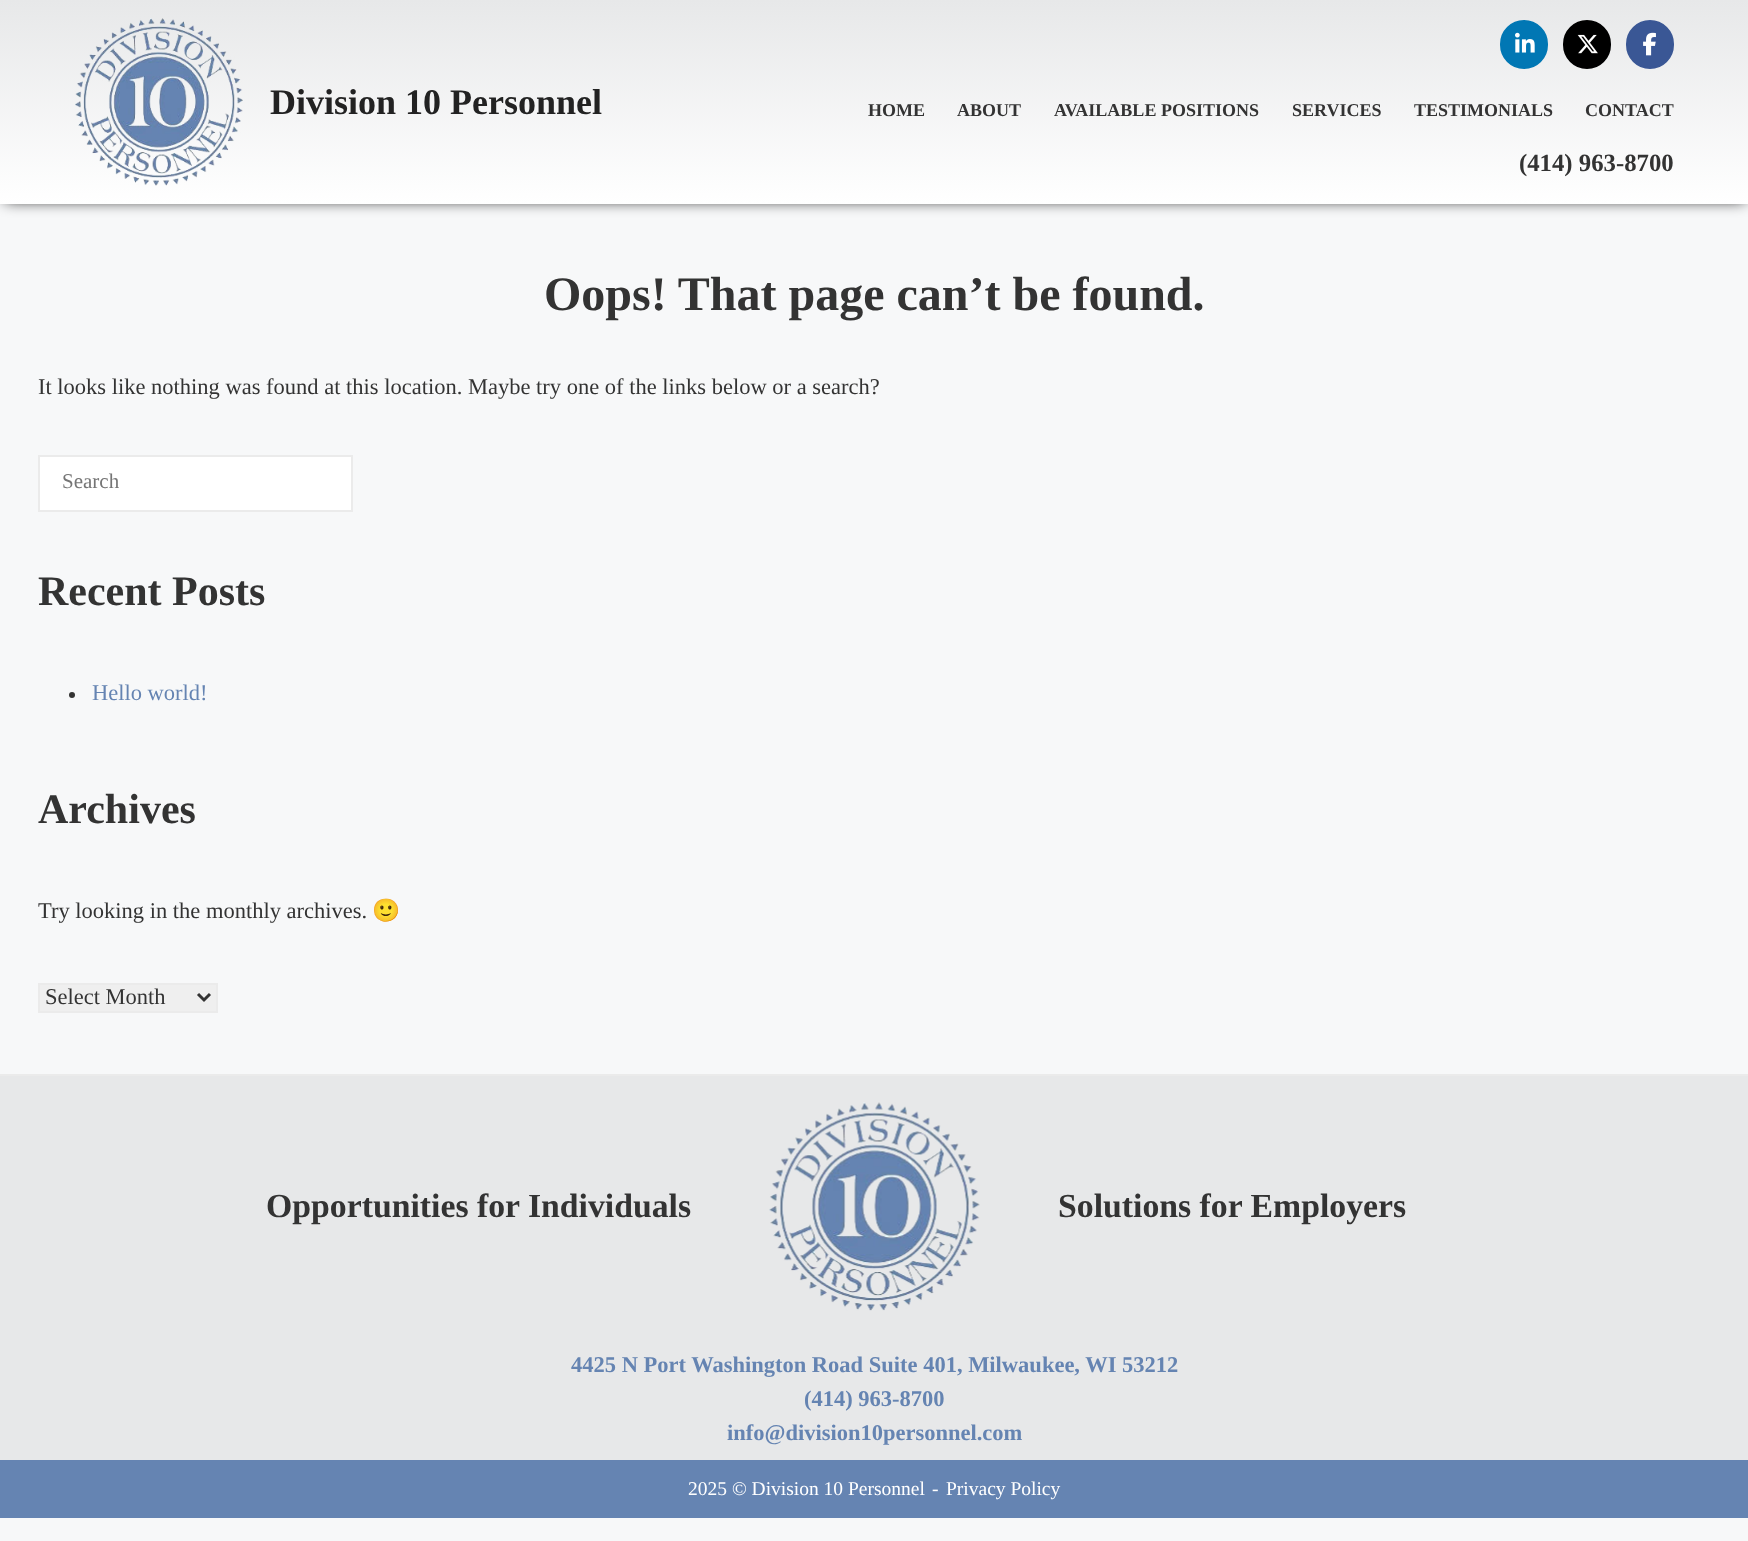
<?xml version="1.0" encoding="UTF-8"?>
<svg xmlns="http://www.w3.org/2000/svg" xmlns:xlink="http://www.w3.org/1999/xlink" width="1748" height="1541">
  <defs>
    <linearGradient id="g1" gradientUnits="userSpaceOnUse" x1="875" y1="204" x2="875" y2="0"><stop offset="0" stop-color="#ffffff" /><stop offset="1" stop-color="#e7e8e9" /></linearGradient>
  </defs>
  <rect width="100%" height="100%" fill="#f7f8f9" />
  <rect x="5" y="5" width="1740" height="195" fill="#000000" filter="blur(7.5px)" />
  <rect width="1748" height="204" fill="url(#g1)" />
  <image x="75" y="18" width="168" height="168" xlink:href="image1.png" />
  <rect x="1501" y="21" width="46" height="47" rx="23" fill="#0177b4" stroke="#0177b4" stroke-width="2" />
  <image x="1515" y="32" width="20" height="21" xlink:href="image2.png" />
  <rect x="1564" y="21" width="46" height="47" rx="23" fill="#000000" stroke="#000000" stroke-width="2" />
  <image x="1577" y="34" width="21" height="20" xlink:href="image3.png" />
  <rect x="1627" y="21" width="46" height="47" rx="23" fill="#3a5795" stroke="#3a5795" stroke-width="2" />
  <image x="1643" y="32" width="13" height="24" xlink:href="image4.png" />
  <rect x="39" y="456" width="313" height="55" fill="#ffffff" stroke="#ebebeb" stroke-width="2" />
  <circle cx="72" cy="695" r="3" fill="#333333" />
  <rect x="39" y="984" width="178" height="28" fill="#efefef" stroke="#ebebeb" stroke-width="2" />
  <path d="M 198 994 l 6 6 l 6 -6" fill="none" stroke="#333333" stroke-width="3" />
  <rect y="1076" width="1748" height="384" fill="#e7e8e9" />
  <rect y="1074" width="1748" height="2" fill="#ebebeb" />
  <image x="769" y="1102" width="211" height="209" xlink:href="image5.png" />
  <rect y="1460" width="1748" height="58" fill="#6584b2" />
  <text x="270" y="114" style="font-family: Liberation Serif; font-size: 36px; font-weight: bold; fill: #222222">Division 10 Personnel</text>
  <text x="868" y="116" style="font-family: Liberation Serif; font-size: 18px; font-weight: bold; fill: #333333">HOME</text>
  <text x="957" y="116" style="font-family: Liberation Serif; font-size: 18px; font-weight: bold; fill: #333333">ABOUT</text>
  <text x="1054" y="116" style="font-family: Liberation Serif; font-size: 18px; font-weight: bold; fill: #333333">AVAILABLE POSITIONS</text>
  <text x="1292" y="116" style="font-family: Liberation Serif; font-size: 18px; font-weight: bold; fill: #333333">SERVICES</text>
  <text x="1414" y="116" style="font-family: Liberation Serif; font-size: 18px; font-weight: bold; fill: #333333">TESTIMONIALS</text>
  <text x="1585" y="116" style="font-family: Liberation Serif; font-size: 18px; font-weight: bold; fill: #333333">CONTACT</text>
  <text x="1519" y="171" style="font-family: Liberation Serif; font-size: 24.75px; font-weight: bold; fill: #333333">(414) 963-8700</text>
  <text x="544" y="310" style="font-family: Liberation Serif; font-size: 48px; font-weight: bold; fill: #333333">Oops! That page can’t be found.</text>
  <text x="38" y="394" style="font-family: Liberation Serif; font-size: 22.5px; fill: #333333">It looks like nothing was found at this location. Maybe try one of the links below or a search?</text>
  <text x="62" y="488" style="font-family: Liberation Serif; font-size: 21px; fill: #757575">Search</text>
  <text x="38" y="605" style="font-family: Liberation Serif; font-size: 42px; font-weight: bold; fill: #333333">Recent Posts</text>
  <text x="92" y="700" style="font-family: Liberation Serif; font-size: 22.5px; fill: #6584b2">Hello world!</text>
  <text x="38" y="823" style="font-family: Liberation Serif; font-size: 42px; font-weight: bold; fill: #333333">Archives</text>
  <text x="38" y="918" style="font-family: Liberation Serif; font-size: 22.5px; fill: #333333">Try looking in the monthly archives.</text>
  <text x="372" y="918" style="font-family: Noto Color Emoji; font-size: 22.5px; fill: #333333">🙂</text>
  <text x="45" y="1004" style="font-family: Liberation Serif; font-size: 22.5px; fill: #333333">Select Month</text>
  <text x="266" y="1217" style="font-family: Liberation Serif; font-size: 33.75px; font-weight: bold; fill: #333333">Opportunities for Individuals</text>
  <text x="1058" y="1217" style="font-family: Liberation Serif; font-size: 33.75px; font-weight: bold; fill: #333333">Solutions for Employers</text>
  <text x="571" y="1372" style="font-family: Liberation Serif; font-size: 22.5px; font-weight: bold; fill: #6584b2">4425 N Port Washington Road Suite 401, Milwaukee, WI 53212</text>
  <text x="804" y="1406" style="font-family: Liberation Serif; font-size: 22.5px; font-weight: bold; fill: #6584b2">(414) 963-8700</text>
  <text x="727" y="1440" style="font-family: Liberation Serif; font-size: 22.5px; font-weight: bold; fill: #6584b2">info@division10personnel.com</text>
  <text x="688" y="1495" style="font-family: Liberation Serif; font-size: 19.5px; fill: #ffffff">2025 © Division 10 Personnel</text>
  <text x="932" y="1495" style="font-family: Liberation Serif; font-size: 19.5px; fill: #ffffff">-</text>
  <text x="946" y="1495" style="font-family: Liberation Serif; font-size: 19.5px; fill: #ffffff">Privacy Policy</text>
</svg>
